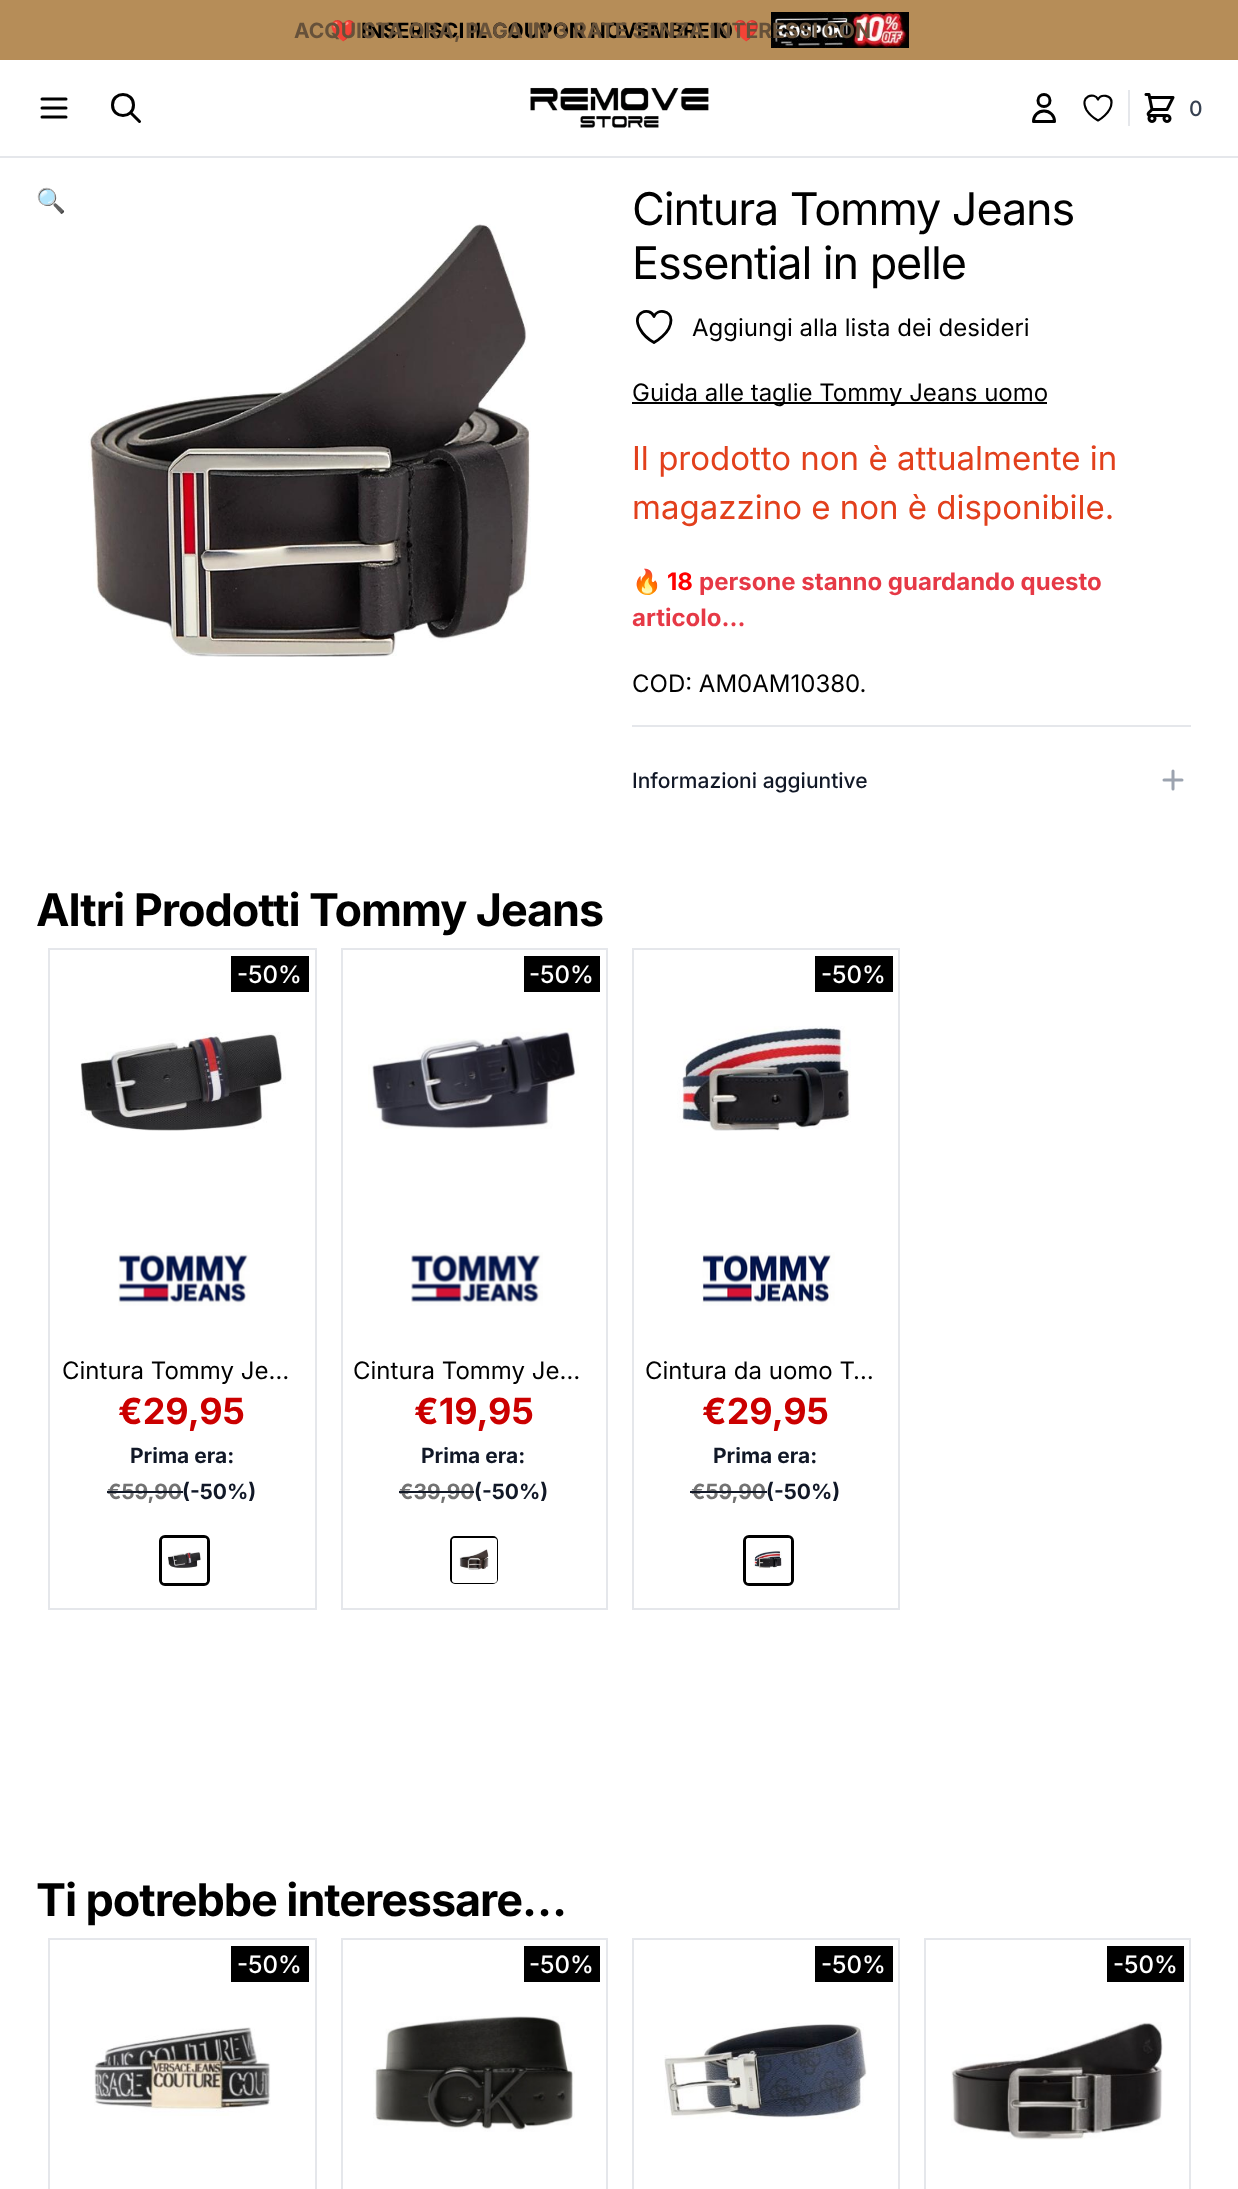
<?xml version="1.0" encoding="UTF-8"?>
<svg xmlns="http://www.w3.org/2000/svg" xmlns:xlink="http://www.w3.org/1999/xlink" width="1238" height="2189">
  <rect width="100%" height="100%" fill="#ffffff" />
  <rect width="1238" height="60" fill="#b68d58" />
  <image x="771" y="12" width="138" height="36" xlink:href="image1.png" />
  <rect y="156" width="1238" height="2" fill="#e5e7eb" />
  <path d="M 42 99 h 24 m -24 9 h 24 m -24 9 h 24" fill="none" stroke="#000000" stroke-width="3" stroke-linecap="round" stroke-linejoin="round" />
  <path d="M 139.5 121.5 l -9 -9 m 3 -7.5 c 0 14 -21 14 -21 0 c 0 -14 21 -14 21 0 z" fill="none" stroke="#000000" stroke-width="3" stroke-linecap="round" stroke-linejoin="round" />
  <image x="530" y="87" width="179" height="41" xlink:href="image2.png" />
  <path d="M 1050 100.5 c 0 8 -12 8 -12 0 c 0 -8 12 -8 12 0 z m -6 10.5 c -6 0 -10.5 4.5 -10.5 10.5 h 21 c 0 -6 -4.5 -10.5 -10.5 -10.5 z" fill="none" stroke="#000000" stroke-width="3" stroke-linecap="round" stroke-linejoin="round" />
  <path d="M 1111.5 102.5 c 0 -7.5 -10.5 -9 -13.5 -3 c -3.5 -8 -19 -3.5 -11.5 10.5 c 2.5 4 7 8 11.5 10.5 c 0 0 13.5 -7.5 13.5 -18 z" fill="none" stroke="#000000" stroke-width="2.2" stroke-linecap="round" stroke-linejoin="round" />
  <rect x="1128" y="90" width="2" height="36" fill="#e5e7eb" />
  <image x="1144" y="93" width="31" height="30" xlink:href="image3.png" />
  <image x="88" y="224" width="443" height="433" xlink:href="image4.png" />
  <path d="M 671 320 c 0 -9.5 -13.5 -11.5 -17 -3.5 c -4.5 -10.5 -23.5 -4 -14 12.5 c 3 5.5 8.5 10.5 14 13.5 c 0 0 17 -9 17 -22.5 z" fill="none" stroke="#000000" stroke-width="2.8" stroke-linecap="round" stroke-linejoin="round" />
  <rect x="632" y="402" width="415" height="2" fill="#000000" />
  <rect x="632" y="725" width="559" height="2" fill="#e5e7eb" />
  <path d="M 1173 771 v 9 m 0 0 v 9 m 0 -9 h 9 m -9 0 h -9" fill="none" stroke="#9ca3af" stroke-width="3" stroke-linecap="round" stroke-linejoin="round" />
  <rect x="49" y="949" width="267" height="660" fill="none" stroke="#e5e7eb" stroke-width="2" />
  <rect x="231" y="956" width="78" height="36" fill="#000000" />
  <image x="80" y="1032" width="206" height="99" xlink:href="image5.png" />
  <image x="118" y="1252" width="132" height="54" xlink:href="image6.png" />
  <rect x="160.5" y="1536.5" width="48" height="48" rx="4.5" fill="none" stroke="#000000" stroke-width="3" />
  <rect x="162" y="1538" width="45" height="45" rx="3" fill="#ffffff" />
  <image x="168" y="1552" width="33" height="16" xlink:href="image7.png" />
  <rect x="342" y="949" width="265" height="660" fill="none" stroke="#e5e7eb" stroke-width="2" />
  <rect x="524" y="956" width="76" height="36" fill="#000000" />
  <image x="368" y="1028" width="211" height="101" xlink:href="image8.png" />
  <image x="411" y="1252" width="132" height="54" xlink:href="image9.png" />
  <rect x="451" y="1537" width="46" height="46" rx="4" fill="none" stroke="#000000" stroke-width="2" />
  <rect x="452" y="1538" width="45" height="45" rx="3" fill="#ffffff" />
  <image x="459" y="1549" width="30" height="21" xlink:href="image10.png" />
  <rect x="633" y="949" width="266" height="660" fill="none" stroke="#e5e7eb" stroke-width="2" />
  <rect x="815" y="956" width="78" height="36" fill="#000000" />
  <image x="677" y="1026" width="174" height="105" xlink:href="image11.png" />
  <image x="702" y="1252" width="133" height="54" xlink:href="image12.png" />
  <rect x="744.5" y="1536.5" width="48" height="48" rx="4.5" fill="none" stroke="#000000" stroke-width="3" />
  <rect x="746" y="1538" width="45" height="45" rx="3" fill="#ffffff" />
  <image x="753" y="1550" width="29" height="18" xlink:href="image13.png" />
  <rect x="49" y="1939" width="267" height="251" fill="none" stroke="#e5e7eb" stroke-width="2" />
  <rect x="231" y="1946" width="78" height="36" fill="#000000" />
  <image x="94" y="2027" width="177" height="89" xlink:href="image14.png" />
  <rect x="342" y="1939" width="265" height="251" fill="none" stroke="#e5e7eb" stroke-width="2" />
  <rect x="524" y="1946" width="76" height="36" fill="#000000" />
  <image x="373" y="2016" width="202" height="116" xlink:href="image15.png" />
  <rect x="633" y="1939" width="266" height="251" fill="none" stroke="#e5e7eb" stroke-width="2" />
  <rect x="815" y="1946" width="78" height="36" fill="#000000" />
  <image x="664" y="2023" width="203" height="96" xlink:href="image16.png" />
  <rect x="925" y="1939" width="265" height="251" fill="none" stroke="#e5e7eb" stroke-width="2" />
  <rect x="1107" y="1946" width="77" height="36" fill="#000000" />
  <image x="951" y="2022" width="212" height="118" xlink:href="image17.png" />
  <text x="330" y="38" style="font-family: Noto Color Emoji; font-size: 21px; font-weight: bold; fill: #000000">❤️</text>
  <text x="361" y="38" style="font-family: Inter; font-size: 21px; font-weight: bold; fill: #000000">INSERISCI IL COUPON NOVEMBRE10</text>
  <text x="733" y="38" style="font-family: Noto Color Emoji; font-size: 21px; font-weight: bold; fill: #000000">❤️</text>
  <text x="294" y="38" style="font-family: Inter; font-size: 21px; font-weight: bold; fill: #66513a">ACQUISTA ORA, PAGA IN 3 RATE SENZA INTERESSI CON</text>
  <text x="1189" y="116" style="font-family: Inter; font-size: 21px; font-weight: 500; fill: #374151">0</text>
  <text x="36" y="209" style="font-family: Noto Color Emoji; font-size: 24px; fill: #000000">🔍</text>
  <text x="632" y="225" style="font-family: Inter; font-size: 45px; letter-spacing: -1.1px; fill: #000000">Cintura Tommy Jeans</text>
  <text x="632" y="279" style="font-family: Inter; font-size: 45px; letter-spacing: -1.1px; fill: #000000">Essential in pelle</text>
  <text x="692" y="336" style="font-family: Inter; font-size: 24px; fill: #000000">Aggiungi alla lista dei desideri</text>
  <text x="632" y="401" style="font-family: Inter; font-size: 24px; fill: #000000">Guida alle taglie Tommy Jeans uomo</text>
  <text x="632" y="470" style="font-family: Inter; font-size: 33px; fill: #e2401c">Il prodotto non è attualmente in</text>
  <text x="632" y="519" style="font-family: Inter; font-size: 33px; fill: #e2401c">magazzino e non è disponibile.</text>
  <text x="632" y="590" style="font-family: Noto Color Emoji; font-size: 24px; font-weight: bold; fill: #e63946">🔥</text>
  <text x="667" y="590" style="font-family: Inter; font-size: 24px; font-weight: bold; fill: #ff0000">18</text>
  <text x="699" y="590" style="font-family: Inter; font-size: 24px; font-weight: bold; fill: #e63946">persone stanno guardando questo</text>
  <text x="632" y="626" style="font-family: Inter; font-size: 24px; font-weight: bold; fill: #e63946">articolo...</text>
  <text x="632" y="692" style="font-family: Inter; font-size: 24px; fill: #000000">COD: AM0AM10380.</text>
  <text x="632" y="788" style="font-family: Inter; font-size: 21px; font-weight: 500; fill: #111827">Informazioni aggiuntive</text>
  <text x="36" y="926" style="font-family: Inter; font-size: 45px; font-weight: bold; letter-spacing: -1.1px; fill: #000000">Altri Prodotti Tommy Jeans</text>
  <text x="237" y="983" style="font-family: Inter; font-size: 24px; font-weight: 500; fill: #ffffff">-50%</text>
  <text x="62" y="1379" style="font-family: Inter; font-size: 24px; fill: #000000">Cintura Tommy Je…</text>
  <text x="118" y="1424" style="font-family: Inter; font-size: 36px; font-weight: bold; fill: #cb0000">€29,95</text>
  <text x="130" y="1463" style="font-family: Inter; font-size: 21px; font-weight: bold; fill: #111827">Prima era:</text>
  <text x="107" y="1499" style="font-family: Inter; font-size: 21px; font-weight: bold; fill: #727272">€59,90</text>
  <rect x="107" y="1491" width="76" height="2" fill="#111827" />
  <text x="182" y="1499" style="font-family: Inter; font-size: 21px; font-weight: bold; fill: #111827">(-50%)</text>
  <text x="529" y="983" style="font-family: Inter; font-size: 24px; font-weight: 500; fill: #ffffff">-50%</text>
  <text x="353" y="1379" style="font-family: Inter; font-size: 24px; fill: #000000">Cintura Tommy Je…</text>
  <text x="414" y="1424" style="font-family: Inter; font-size: 36px; font-weight: bold; fill: #cb0000">€19,95</text>
  <text x="421" y="1463" style="font-family: Inter; font-size: 21px; font-weight: bold; fill: #111827">Prima era:</text>
  <text x="399" y="1499" style="font-family: Inter; font-size: 21px; font-weight: bold; fill: #727272">€39,90</text>
  <rect x="399" y="1491" width="75" height="2" fill="#111827" />
  <text x="474" y="1499" style="font-family: Inter; font-size: 21px; font-weight: bold; fill: #111827">(-50%)</text>
  <text x="821" y="983" style="font-family: Inter; font-size: 24px; font-weight: 500; fill: #ffffff">-50%</text>
  <text x="645" y="1379" style="font-family: Inter; font-size: 24px; fill: #000000">Cintura da uomo T…</text>
  <text x="702" y="1424" style="font-family: Inter; font-size: 36px; font-weight: bold; fill: #cb0000">€29,95</text>
  <text x="713" y="1463" style="font-family: Inter; font-size: 21px; font-weight: bold; fill: #111827">Prima era:</text>
  <text x="691" y="1499" style="font-family: Inter; font-size: 21px; font-weight: bold; fill: #727272">€59,90</text>
  <text x="766" y="1499" style="font-family: Inter; font-size: 21px; font-weight: bold; fill: #111827">(-50%)</text>
  <rect x="690" y="1491" width="77" height="2" fill="#111827" />
  <text x="36" y="1916" style="font-family: Inter; font-size: 45px; font-weight: bold; letter-spacing: -1.1px; fill: #000000">Ti potrebbe interessare…</text>
  <text x="237" y="1973" style="font-family: Inter; font-size: 24px; font-weight: 500; fill: #ffffff">-50%</text>
  <text x="529" y="1973" style="font-family: Inter; font-size: 24px; font-weight: 500; fill: #ffffff">-50%</text>
  <text x="821" y="1973" style="font-family: Inter; font-size: 24px; font-weight: 500; fill: #ffffff">-50%</text>
  <text x="1113" y="1973" style="font-family: Inter; font-size: 24px; font-weight: 500; fill: #ffffff">-50%</text>
</svg>
